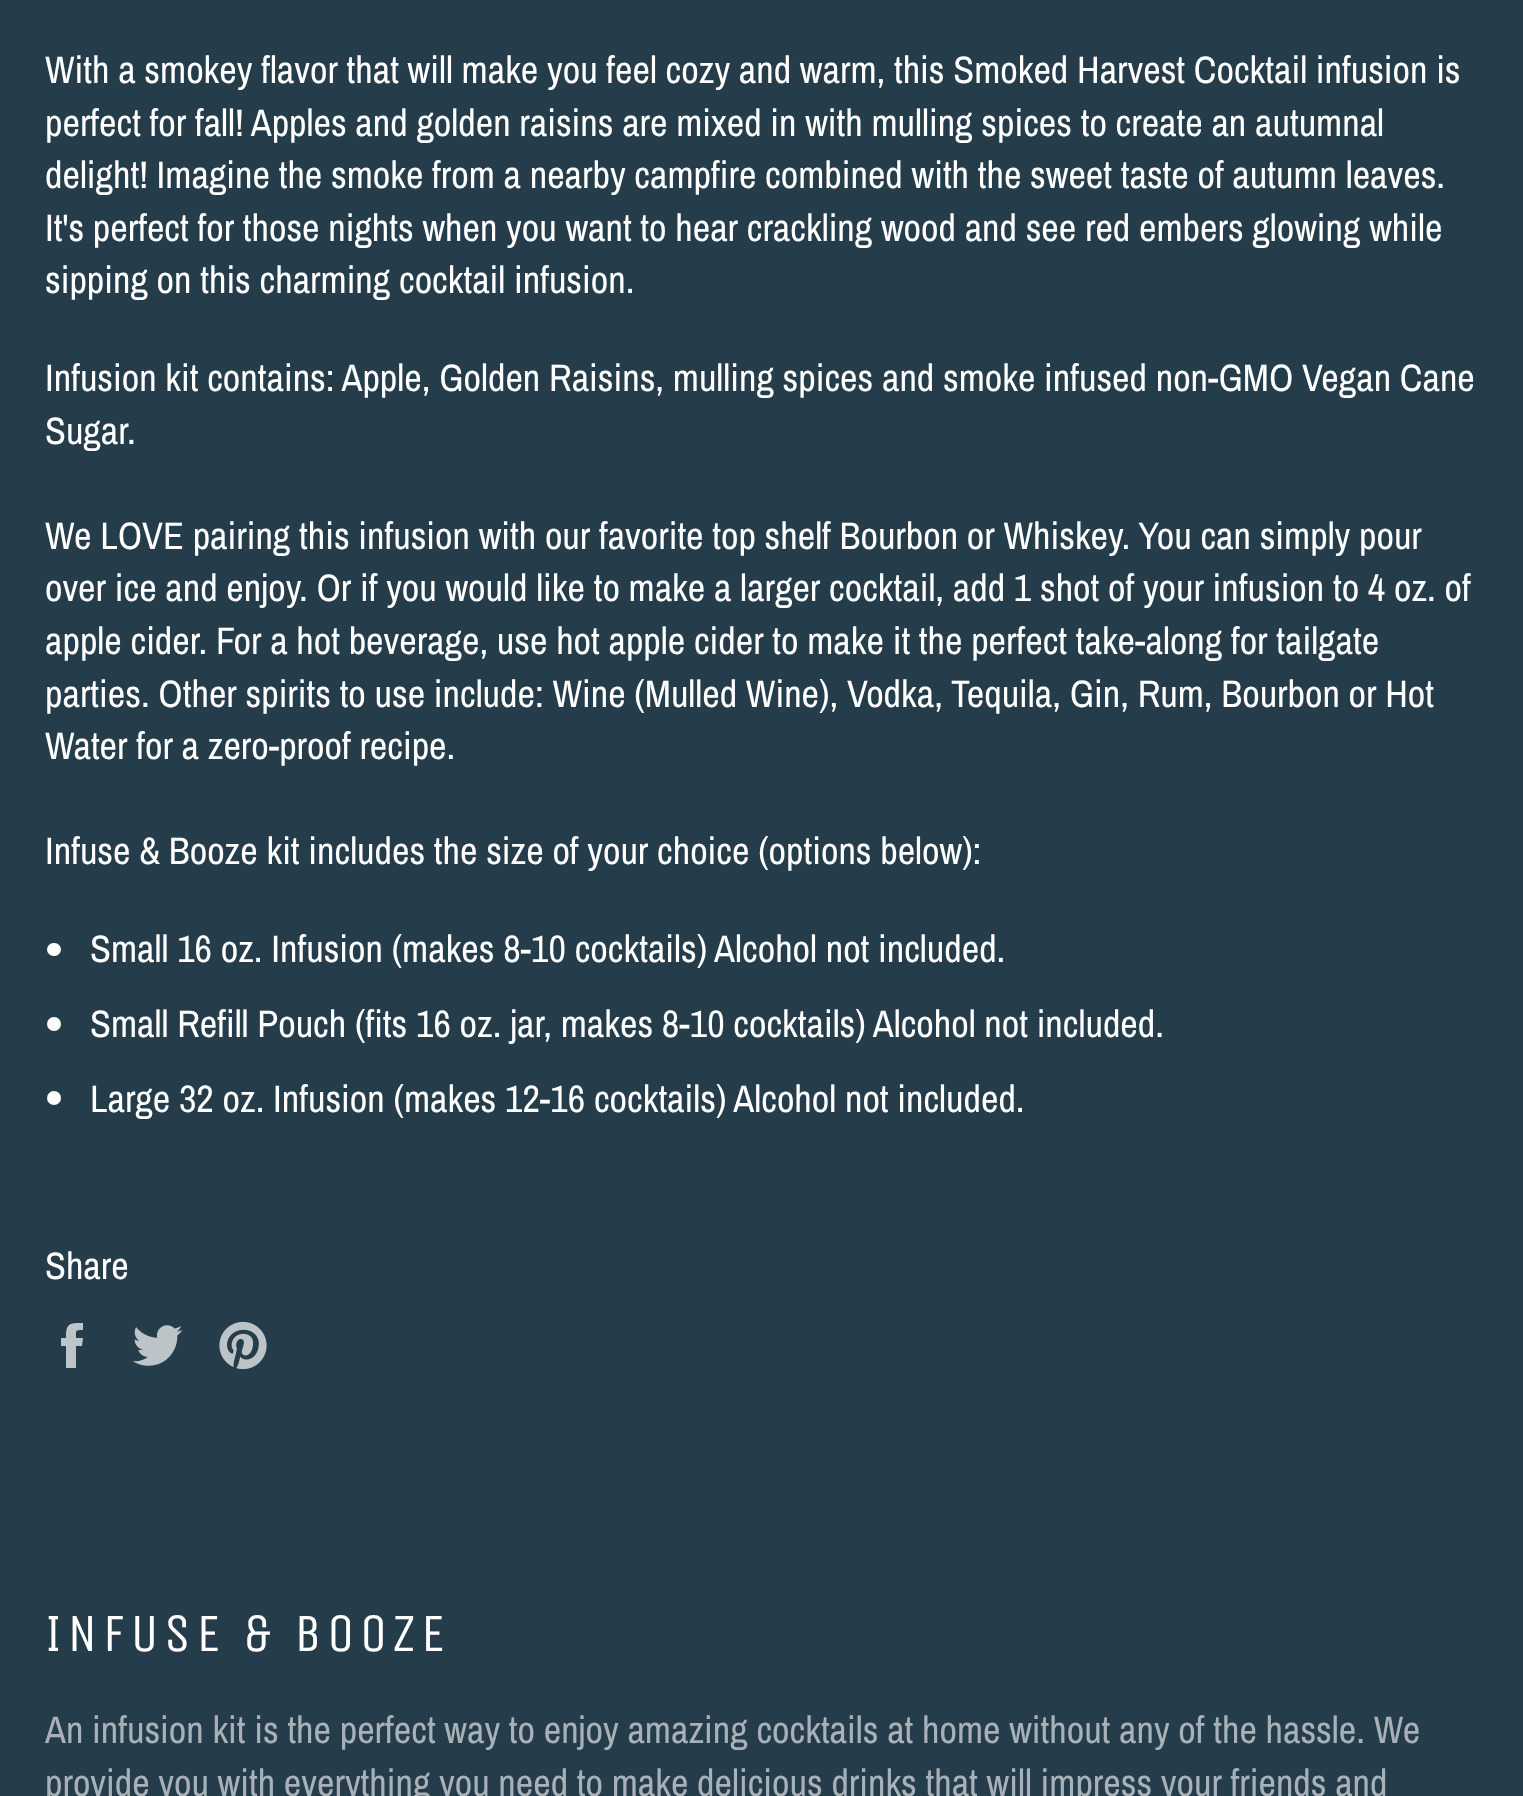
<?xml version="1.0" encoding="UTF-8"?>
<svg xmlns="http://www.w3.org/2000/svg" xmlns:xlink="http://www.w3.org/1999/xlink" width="1523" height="1796">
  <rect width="100%" height="100%" fill="#253c4a" />
  <rect x="47" y="943" width="14" height="13" rx="6.5" fill="#ffffff" />
  <circle cx="54" cy="1024" r="7" fill="#ffffff" />
  <circle cx="54" cy="1098" r="7" fill="#ffffff" />
  <path d="M 76 1338 c 0 -8 -1 -8 7 -8 v -7 c -14 0 -17 0 -17 15 h -5 v 8 h 5 v 22 h 10 v -22 h 6 l 1 -8 z" fill="#bec5c9" />
  <image x="132" y="1325" width="51" height="41" xlink:href="image1.png" />
  <image x="219" y="1321" width="48" height="49" xlink:href="image2.png" />
  <text x="45" y="83" style="font-family: Archivo Narrow; font-size: 38.25px; fill: #ffffff">With a smokey flavor that will make you feel cozy and warm, this Smoked Harvest Cocktail infusion is</text>
  <text x="45" y="136" style="font-family: Archivo Narrow; font-size: 38.25px; fill: #ffffff">perfect for fall! Apples and golden raisins are mixed in with mulling spices to create an autumnal</text>
  <text x="45" y="188" style="font-family: Archivo Narrow; font-size: 38.25px; fill: #ffffff">delight! Imagine the smoke from a nearby campfire combined with the sweet taste of autumn leaves.</text>
  <text x="45" y="241" style="font-family: Archivo Narrow; font-size: 38.25px; fill: #ffffff">It's perfect for those nights when you want to hear crackling wood and see red embers glowing while</text>
  <text x="45" y="293" style="font-family: Archivo Narrow; font-size: 38.25px; fill: #ffffff">sipping on this charming cocktail infusion.</text>
  <text x="45" y="391" style="font-family: Archivo Narrow; font-size: 38.25px; fill: #ffffff">Infusion kit contains: Apple, Golden Raisins, mulling spices and smoke infused non-GMO Vegan Cane</text>
  <text x="45" y="444" style="font-family: Archivo Narrow; font-size: 38.25px; fill: #ffffff">Sugar.</text>
  <text x="45" y="549" style="font-family: Archivo Narrow; font-size: 38.25px; fill: #ffffff">We LOVE pairing this infusion with our favorite top shelf Bourbon or Whiskey. You can simply pour</text>
  <text x="45" y="601" style="font-family: Archivo Narrow; font-size: 38.25px; fill: #ffffff">over ice and enjoy. Or if you would like to make a larger cocktail, add 1 shot of your infusion to 4 oz. of</text>
  <text x="45" y="654" style="font-family: Archivo Narrow; font-size: 38.25px; fill: #ffffff">apple cider. For a hot beverage, use hot apple cider to make it the perfect take-along for tailgate</text>
  <text x="45" y="707" style="font-family: Archivo Narrow; font-size: 38.25px; fill: #ffffff">parties. Other spirits to use include: Wine (Mulled Wine), Vodka, Tequila, Gin, Rum, Bourbon or Hot</text>
  <text x="45" y="759" style="font-family: Archivo Narrow; font-size: 38.25px; fill: #ffffff">Water for a zero-proof recipe.</text>
  <text x="45" y="864" style="font-family: Archivo Narrow; font-size: 38.25px; fill: #ffffff">Infuse &amp; Booze kit includes the size of your choice (options below):</text>
  <text x="90" y="962" style="font-family: Archivo Narrow; font-size: 38.25px; fill: #ffffff">Small 16 oz. Infusion (makes 8-10 cocktails) Alcohol not included.</text>
  <text x="90" y="1037" style="font-family: Archivo Narrow; font-size: 38.25px; fill: #ffffff">Small Refill Pouch (fits 16 oz. jar, makes 8-10 cocktails) Alcohol not included.</text>
  <text x="90" y="1112" style="font-family: Archivo Narrow; font-size: 38.25px; fill: #ffffff">Large 32 oz. Infusion (makes 12-16 cocktails) Alcohol not included.</text>
  <text x="45" y="1279" style="font-family: Archivo Narrow; font-size: 38.25px; fill: #ffffff">Share</text>
  <text x="45" y="1651" style="font-family: Unica One; font-size: 54px; letter-spacing: 5.4px; fill: #ffffff">INFUSE &amp; BOOZE</text>
  <text x="45" y="1743" style="font-family: Archivo Narrow; font-size: 38.25px; fill: #a8b1b7">An infusion kit is the perfect way to enjoy amazing cocktails at home without any of the hassle. We</text>
  <text x="45" y="1796" style="font-family: Archivo Narrow; font-size: 38.25px; fill: #a8b1b7">provide you with everything you need to make delicious drinks that will impress your friends and</text>
</svg>
